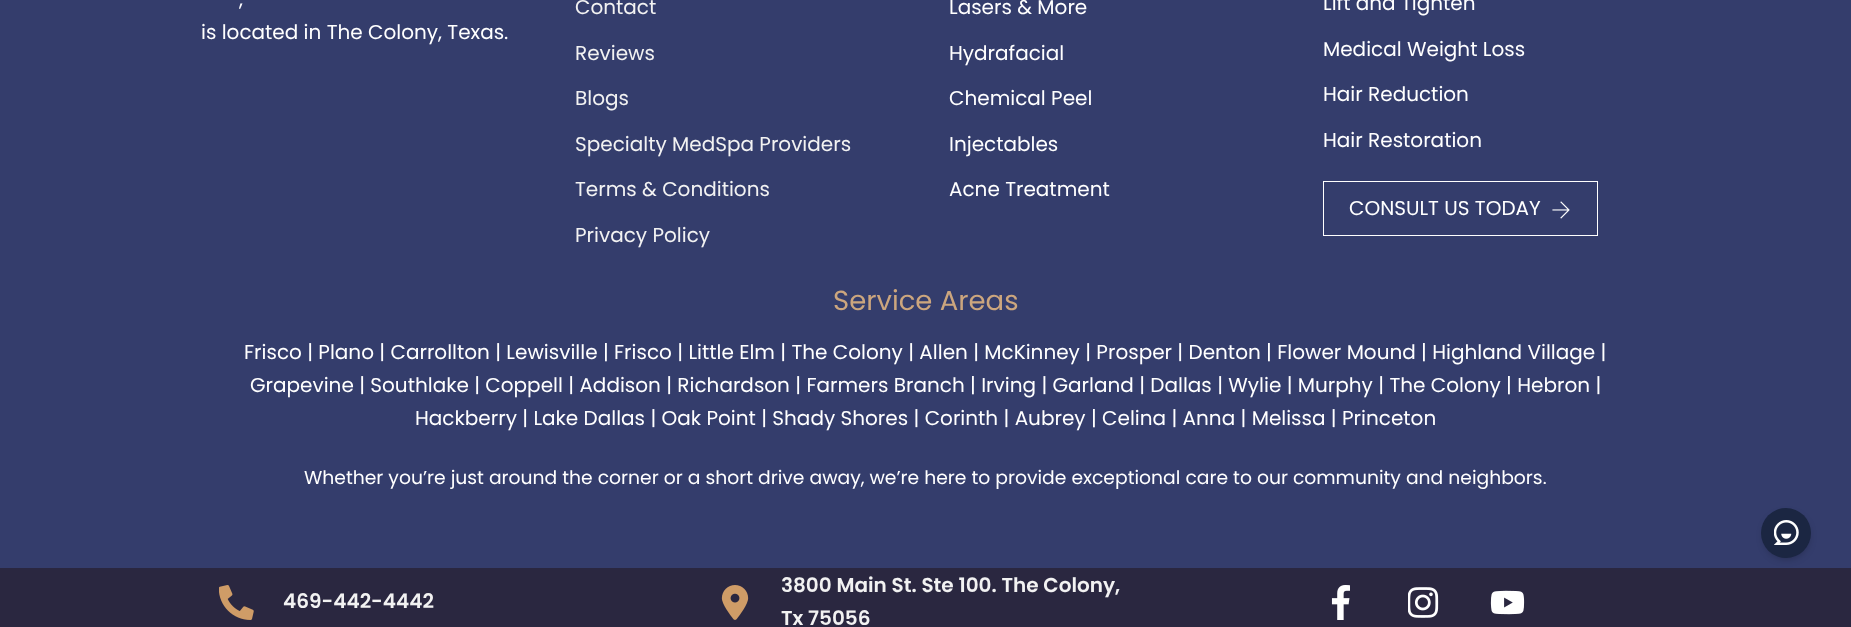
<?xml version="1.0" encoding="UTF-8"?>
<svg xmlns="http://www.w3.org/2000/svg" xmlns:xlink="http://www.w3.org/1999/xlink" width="1851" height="627">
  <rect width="100%" height="100%" fill="#343d6c" />
  <rect x="1323.5" y="181.5" width="274" height="54" fill="none" stroke="#ffffff" />
  <image x="1552" y="201" width="18" height="18" xlink:href="image1.png" />
  <rect y="568" width="1851" height="59" fill="#2a2740" />
  <image x="219" y="585" width="35" height="35" xlink:href="image2.png" />
  <image x="721" y="585" width="28" height="35" xlink:href="image3.png" />
  <image x="1331" y="585" width="19" height="35" xlink:href="image4.png" />
  <image x="1408" y="587" width="31" height="31" xlink:href="image5.png" />
  <image x="1490" y="590" width="35" height="25" xlink:href="image6.png" />
  <rect x="1765" y="515" width="43" height="43" rx="21.5" fill="#000000" fill-opacity="0.3" filter="blur(4.5px)" />
  <circle cx="1786" cy="533" r="25" fill="#1b2642" />
  <image x="1774" y="520" width="25" height="25" xlink:href="image7.png" />
  <text x="239" y="6" style="font-family: Poppins; font-size: 20px; fill: #ffffff">,</text>
  <text x="201" y="39" style="font-family: Poppins; font-size: 20px; fill: #ffffff">is located in The Colony, Texas.</text>
  <text x="575" y="14" style="font-family: Poppins; font-size: 20px; fill: #f2f2f2">Contact</text>
  <text x="575" y="60" style="font-family: Poppins; font-size: 20px; fill: #f2f2f2">Reviews</text>
  <text x="575" y="105" style="font-family: Poppins; font-size: 20px; fill: #f2f2f2">Blogs</text>
  <text x="575" y="151" style="font-family: Poppins; font-size: 20px; fill: #f2f2f2">Specialty MedSpa Providers</text>
  <text x="575" y="196" style="font-family: Poppins; font-size: 20px; fill: #f2f2f2">Terms &amp; Conditions</text>
  <text x="575" y="242" style="font-family: Poppins; font-size: 20px; fill: #f2f2f2">Privacy Policy</text>
  <text x="949" y="14" style="font-family: Poppins; font-size: 20px; fill: #ffffff">Lasers &amp; More</text>
  <text x="949" y="60" style="font-family: Poppins; font-size: 20px; fill: #ffffff">Hydrafacial</text>
  <text x="949" y="105" style="font-family: Poppins; font-size: 20px; fill: #ffffff">Chemical Peel</text>
  <text x="949" y="151" style="font-family: Poppins; font-size: 20px; fill: #ffffff">Injectables</text>
  <text x="949" y="196" style="font-family: Poppins; font-size: 20px; fill: #ffffff">Acne Treatment</text>
  <text x="1323" y="10" style="font-family: Poppins; font-size: 20px; fill: #ffffff">Lift and Tighten</text>
  <text x="1323" y="56" style="font-family: Poppins; font-size: 20px; fill: #ffffff">Medical Weight Loss</text>
  <text x="1323" y="101" style="font-family: Poppins; font-size: 20px; fill: #ffffff">Hair Reduction</text>
  <text x="1323" y="147" style="font-family: Poppins; font-size: 20px; fill: #ffffff">Hair Restoration</text>
  <text x="1349" y="215" style="font-family: Poppins; font-size: 20px; fill: #ffffff">CONSULT US TODAY</text>
  <text x="833" y="310" style="font-family: Poppins; font-size: 27.5px; fill: #cca67e">Service Areas</text>
  <text x="244" y="359" style="font-family: Poppins; font-size: 20px; fill: #ffffff">Frisco | Plano | Carrollton | Lewisville | Frisco | Little Elm | The Colony | Allen | McKinney | Prosper | Denton | Flower Mound | Highland Village |</text>
  <text x="250" y="392" style="font-family: Poppins; font-size: 20px; fill: #ffffff">Grapevine | Southlake | Coppell | Addison | Richardson | Farmers Branch | Irving | Garland | Dallas | Wylie | Murphy | The Colony | Hebron |</text>
  <text x="415" y="425" style="font-family: Poppins; font-size: 20px; fill: #ffffff">Hackberry | Lake Dallas | Oak Point | Shady Shores | Corinth | Aubrey | Celina | Anna | Melissa | Princeton</text>
  <text x="304" y="484" style="font-family: Poppins; font-size: 18.75px; fill: #ffffff">Whether you’re just around the corner or a short drive away, we’re here to provide exceptional care to our community and neighbors.</text>
  <text x="283" y="608" style="font-family: Poppins; font-size: 20px; font-weight: 600; fill: #f2f2f2">469-442-4442</text>
  <text x="781" y="592" style="font-family: Poppins; font-size: 20px; font-weight: 600; fill: #f2f2f2">3800 Main St. Ste 100. The Colony,</text>
  <text x="781" y="625" style="font-family: Poppins; font-size: 20px; font-weight: 600; fill: #f2f2f2">Tx 75056</text>
</svg>
